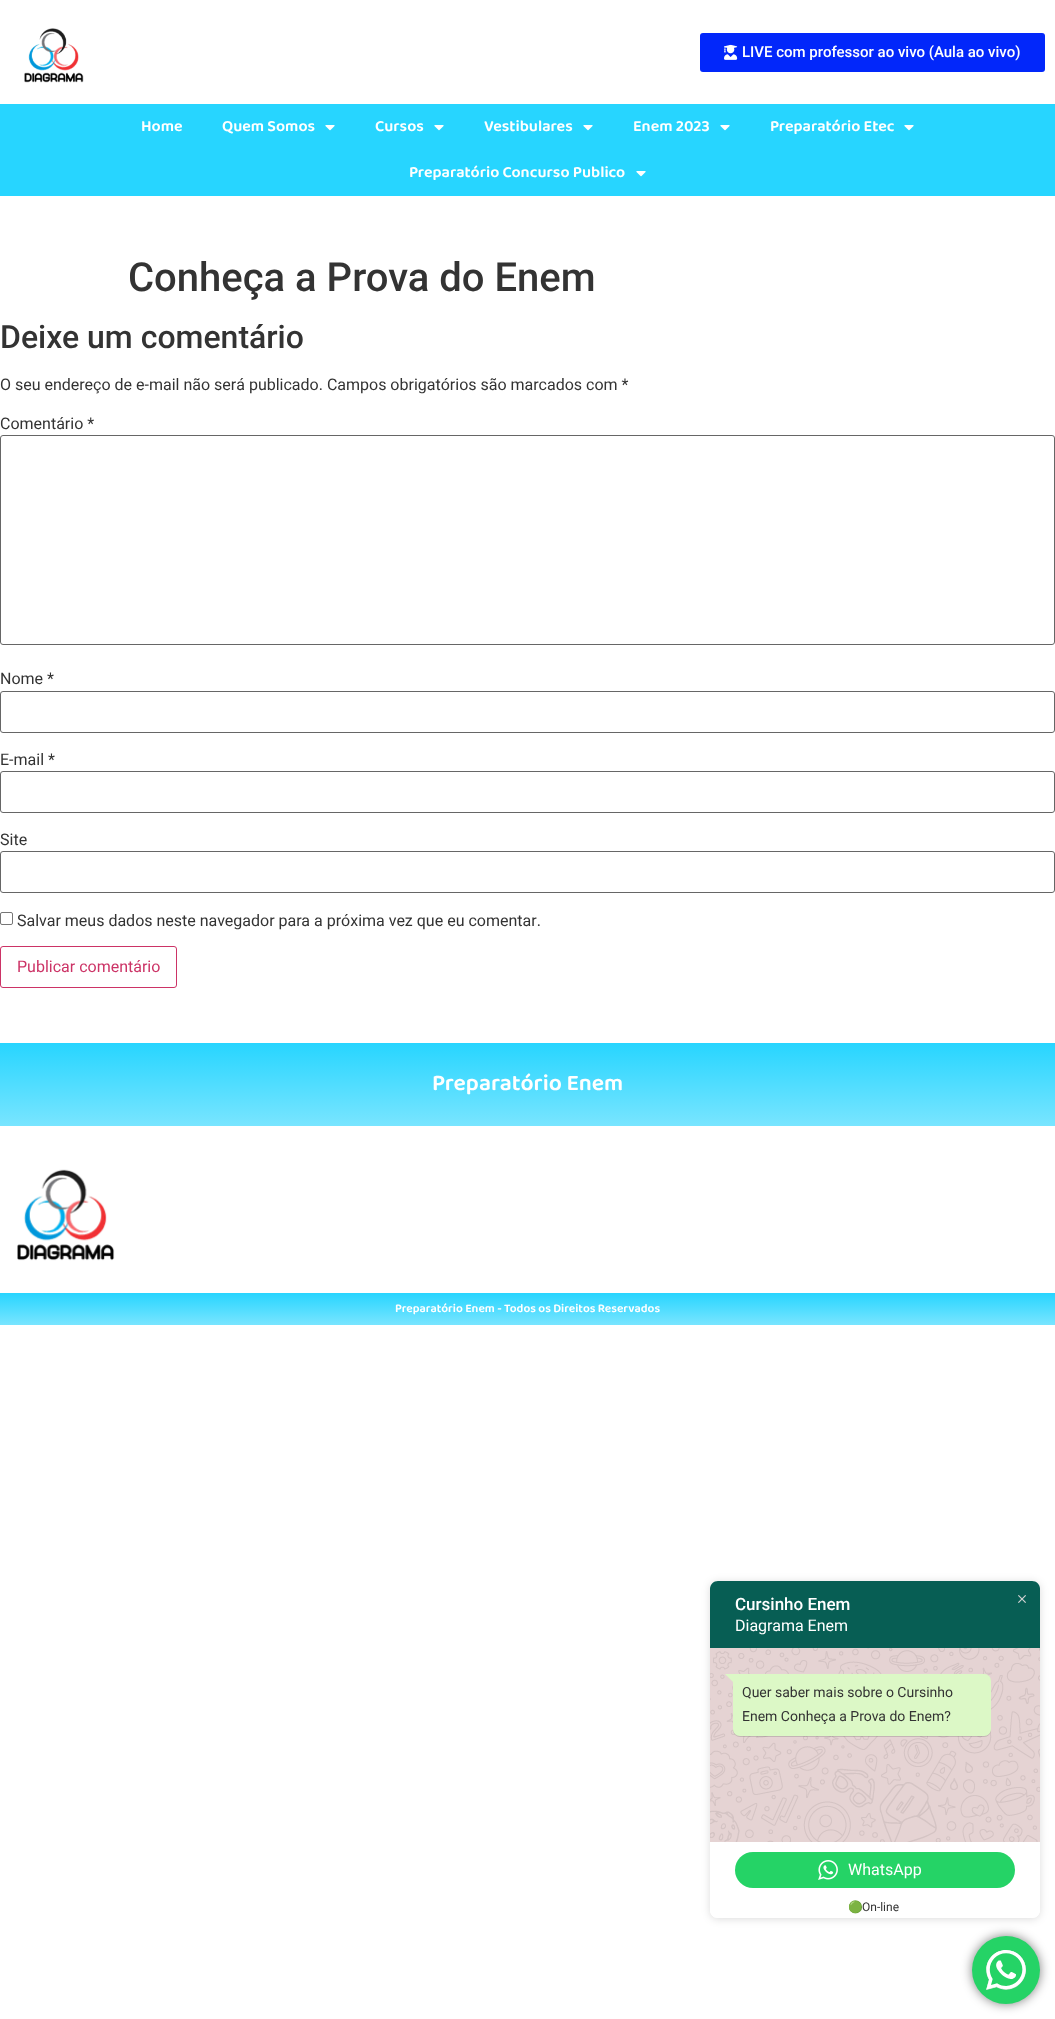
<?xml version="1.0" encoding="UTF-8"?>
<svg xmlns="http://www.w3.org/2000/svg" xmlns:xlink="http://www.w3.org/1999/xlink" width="1055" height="2019">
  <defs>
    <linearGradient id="g1" gradientUnits="userSpaceOnUse" x1="528" y1="1043" x2="528" y2="1126"><stop offset="0" stop-color="#27d5ff" /><stop offset="1" stop-color="#79e5ff" /></linearGradient>
    <linearGradient id="g2" gradientUnits="userSpaceOnUse" x1="528" y1="1293" x2="528" y2="1325"><stop offset="0" stop-color="#27d5ff" /><stop offset="1" stop-color="#79e5ff" /></linearGradient>
    <clipPath id="clip1"><path d="M 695 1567 h 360 v 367 h -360 z m 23 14 h 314 c 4.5 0 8 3.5 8 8 v 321 c 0 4.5 -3.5 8 -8 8 h -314 c -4.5 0 -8 -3.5 -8 -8 v -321 c 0 -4.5 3.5 -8 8 -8 z" clip-rule="evenodd" /></clipPath>
  </defs>
  <rect width="100%" height="100%" fill="#ffffff" />
  <image x="24" y="28" width="60" height="55" xlink:href="image1.png" />
  <rect x="700" y="33" width="345" height="39" rx="3" fill="#0227fa" />
  <image x="724" y="44" width="14" height="16" xlink:href="image2.png" />
  <rect y="104" width="1055" height="92" fill="#27d5ff" />
  <image x="325" y="125" width="10" height="6" xlink:href="image3.png" />
  <image x="434" y="125" width="10" height="6" xlink:href="image3.png" />
  <image x="583" y="125" width="10" height="6" xlink:href="image3.png" />
  <image x="720" y="125" width="10" height="6" xlink:href="image3.png" />
  <image x="904" y="125" width="10" height="6" xlink:href="image3.png" />
  <image x="636" y="171" width="10" height="6" xlink:href="image3.png" />
  <rect x="0.5" y="435.5" width="1054" height="209" rx="2.5" fill="none" stroke="#666666" />
  <rect x="0.5" y="691.5" width="1054" height="41" rx="2.5" fill="none" stroke="#666666" />
  <rect x="0.5" y="771.5" width="1054" height="41" rx="2.5" fill="none" stroke="#666666" />
  <rect x="0.5" y="851.5" width="1054" height="41" rx="2.5" fill="none" stroke="#666666" />
  <rect x="0.5" y="912.5" width="12" height="12" rx="1.5" fill="none" stroke="#767676" />
  <rect x="0.5" y="946.5" width="176" height="41" rx="2.5" fill="none" stroke="#cc3366" />
  <rect y="1043" width="1055" height="83" fill="url(#g1)" />
  <image x="17" y="1169" width="98" height="92" xlink:href="image4.png" />
  <rect y="1293" width="1055" height="32" fill="url(#g2)" />
  <g clip-path="url(#clip1)">
    <rect x="710" y="1582" width="330" height="337" rx="8" fill="#000000" fill-opacity="0.14" filter="blur(4.5px)" />
  </g>
  <path d="M 718 1581 h 314 c 4.5 0 8 3.5 8 8 v 60 h -330 v -60 c 0 -4.5 3.5 -8 8 -8 z" fill="#075e54" />
  <rect x="710" y="1648" width="330" height="194" fill="#e5d3d3" />
  <image x="710" y="1648" width="330" height="194" xlink:href="image5.png" />
  <rect x="733" y="1675" width="258" height="62" rx="7" fill="#000000" fill-opacity="0.14" filter="blur(0.5px)" />
  <path d="M 733 1674 h 251 c 4 0 7 3 7 7 v 48 c 0 4 -3 7 -7 7 h -244 c -4 0 -7 -3 -7 -7 z" fill="#dcf8c6" />
  <path d="M 725 1674 h 9 v 9 z" fill="#dcf8c6" />
  <rect x="735" y="1852" width="280" height="36" rx="18" fill="#25d366" />
  <image x="818" y="1860" width="20" height="20" xlink:href="image6.png" />
  <path d="M 710 1896 h 330 v 14 c 0 4.5 -3.5 8 -8 8 h -314 c -4.5 0 -8 -3.5 -8 -8 z" fill="#ffffff" />
  <image x="1018" y="1595" width="8" height="8" xlink:href="image7.png" />
  <rect x="972" y="1936" width="68" height="68" rx="34" fill="#000000" fill-opacity="0.5" filter="blur(5.5px)" />
  <circle cx="1006" cy="1970" r="34" fill="#25d366" />
  <image x="986" y="1950" width="40" height="40" xlink:href="image8.png" />
  <text x="742" y="57" style="font-family: Roboto; font-size: 15px; font-weight: 500; fill: #ffffff">LIVE com professor ao vivo (Aula ao vivo)</text>
  <text x="141" y="131" style="font-family: 'Baloo Bhai 2'; font-size: 16px; font-weight: 600; fill: #ffffff">Home</text>
  <text x="222" y="131" style="font-family: 'Baloo Bhai 2'; font-size: 16px; font-weight: 600; fill: #ffffff">Quem Somos</text>
  <text x="375" y="131" style="font-family: 'Baloo Bhai 2'; font-size: 16px; font-weight: 600; fill: #ffffff">Cursos</text>
  <text x="484" y="131" style="font-family: 'Baloo Bhai 2'; font-size: 16px; font-weight: 600; fill: #ffffff">Vestibulares</text>
  <text x="633" y="131" style="font-family: 'Baloo Bhai 2'; font-size: 16px; font-weight: 600; fill: #ffffff">Enem 2023</text>
  <text x="770" y="131" style="font-family: 'Baloo Bhai 2'; font-size: 16px; font-weight: 600; fill: #ffffff">Preparatório Etec</text>
  <text x="409" y="177" style="font-family: 'Baloo Bhai 2'; font-size: 16px; font-weight: 600; fill: #ffffff">Preparatório Concurso Publico</text>
  <text x="128" y="291" style="font-family: Roboto; font-size: 40px; font-weight: 500; fill: #333333">Conheça a Prova do Enem</text>
  <text x="0" y="348" style="font-family: Roboto; font-size: 32px; font-weight: 500; fill: #333333">Deixe um comentário</text>
  <text x="0" y="390" style="font-family: Roboto; font-size: 16px; fill: #333333">O seu endereço de e-mail não será publicado. Campos obrigatórios são marcados com *</text>
  <text x="0" y="429" style="font-family: Roboto; font-size: 16px; fill: #333333">Comentário *</text>
  <text x="0" y="684" style="font-family: Roboto; font-size: 16px; fill: #333333">Nome *</text>
  <text x="0" y="765" style="font-family: Roboto; font-size: 16px; fill: #333333">E-mail *</text>
  <text x="0" y="845" style="font-family: Roboto; font-size: 16px; fill: #333333">Site</text>
  <text x="17" y="926" style="font-family: Roboto; font-size: 16px; fill: #333333">Salvar meus dados neste navegador para a próxima vez que eu comentar.</text>
  <text x="17" y="972" style="font-family: Roboto; font-size: 16px; fill: #cc3366">Publicar comentário</text>
  <text x="432" y="1090" style="font-family: 'Baloo Bhai 2'; font-size: 23px; font-weight: 600; fill: #ffffff">Preparatório Enem</text>
  <text x="395" y="1312" style="font-family: 'Baloo Bhai 2'; font-size: 12px; font-weight: 600; fill: #ffffff">Preparatório Enem - Todos os Direitos Reservados</text>
  <text x="735" y="1610" style="font-family: Roboto; font-size: 17px; font-weight: 500; fill: #ffffff">Cursinho Enem</text>
  <text x="735" y="1631" style="font-family: Roboto; font-size: 16px; fill: #ffffff">Diagrama Enem</text>
  <text x="742" y="1697" style="font-family: Roboto; font-size: 14px; fill: #333333">Quer saber mais sobre o Cursinho</text>
  <text x="742" y="1721" style="font-family: Roboto; font-size: 14px; fill: #333333">Enem Conheça a Prova do Enem?</text>
  <text x="848" y="1875" style="font-family: Roboto; font-size: 16px; fill: #ffffff">WhatsApp</text>
  <text x="848" y="1911" style="font-family: Noto Color Emoji; font-size: 12px; fill: #333333">🟢</text>
  <text x="862" y="1911" style="font-family: Roboto; font-size: 12px; fill: #333333">On-line</text>
</svg>
